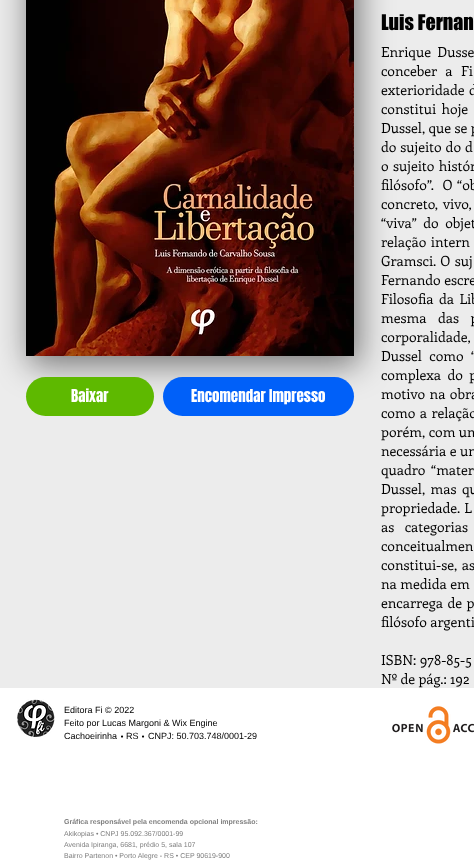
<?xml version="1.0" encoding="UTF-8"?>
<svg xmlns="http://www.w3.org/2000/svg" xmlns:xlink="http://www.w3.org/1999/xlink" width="474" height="862">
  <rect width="100%" height="100%" fill="#ececec" />
  <rect x="29" y="-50" width="330" height="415" fill="#000000" fill-opacity="0.5" filter="blur(16.5px)" />
  <image x="26" y="0" width="328" height="356" xlink:href="image1.png" />
  <rect x="26" y="377" width="128" height="39" rx="19.5" fill="#5eb900" />
  <rect x="163" y="377" width="191" height="39" rx="19.5" fill="#0060f9" />
  <rect y="688" width="474" height="174" fill="#ffffff" />
  <image x="17" y="699" width="38" height="38" xlink:href="image2.png" />
  <image x="392" y="706" width="82" height="38" xlink:href="image3.png" />
  <text x="381" y="30" style="font-family: 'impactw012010'; font-size: 20px; fill: #000000">Luis Fernan</text>
  <text x="71" y="402" style="font-family: Anton; font-size: 15px; fill: #ffffff">Baixar</text>
  <text x="191" y="402" style="font-family: Anton; font-size: 15px; fill: #ffffff">Encomendar Impresso</text>
  <text x="381" y="57" word-spacing="3" style="font-family: Enriqueta; font-size: 14px; fill: #000000">Enrique Dusse</text>
  <text x="381" y="76" word-spacing="5" style="font-family: Enriqueta; font-size: 14px; fill: #000000">conceber a Fi</text>
  <text x="381" y="95" word-spacing="1" style="font-family: Enriqueta; font-size: 14px; fill: #000000">exterioridade d</text>
  <text x="381" y="114" word-spacing="2" style="font-family: Enriqueta; font-size: 14px; fill: #000000">constitui hoje</text>
  <text x="381" y="133" style="font-family: Enriqueta; font-size: 14px; fill: #000000">Dussel, que se p</text>
  <text x="381" y="152" word-spacing="0.5" style="font-family: Enriqueta; font-size: 14px; fill: #000000">do sujeito do d</text>
  <text x="381" y="171" word-spacing="1" style="font-family: Enriqueta; font-size: 14px; fill: #000000">o sujeito histór</text>
  <text x="381" y="190" word-spacing="1" style="font-family: Enriqueta; font-size: 14px; fill: #000000" xml:space="preserve">filósofo”.  O “ob</text>
  <text x="381" y="209" word-spacing="2" style="font-family: Enriqueta; font-size: 14px; fill: #000000">concreto, vivo,</text>
  <text x="381" y="228" word-spacing="3" style="font-family: Enriqueta; font-size: 14px; fill: #000000">“viva” do objet</text>
  <text x="381" y="247" word-spacing="1" style="font-family: Enriqueta; font-size: 14px; fill: #000000">relação intern</text>
  <text x="381" y="266" word-spacing="1" style="font-family: Enriqueta; font-size: 14px; fill: #000000">Gramsci. O suj</text>
  <text x="381" y="285" style="font-family: Enriqueta; font-size: 14px; fill: #000000">Fernando escre</text>
  <text x="381" y="304" word-spacing="2" style="font-family: Enriqueta; font-size: 14px; fill: #000000">Filosofia da Lib</text>
  <text x="381" y="323" word-spacing="8" style="font-family: Enriqueta; font-size: 14px; fill: #000000">mesma das p</text>
  <text x="381" y="342" word-spacing="4" style="font-family: Enriqueta; font-size: 14px; fill: #000000">corporalidade,</text>
  <text x="381" y="361" word-spacing="4" style="font-family: Enriqueta; font-size: 14px; fill: #000000">Dussel como “</text>
  <text x="381" y="380" word-spacing="3" style="font-family: Enriqueta; font-size: 14px; fill: #000000">complexa do p</text>
  <text x="381" y="399" word-spacing="1" style="font-family: Enriqueta; font-size: 14px; fill: #000000">motivo na obra</text>
  <text x="381" y="418" word-spacing="1" style="font-family: Enriqueta; font-size: 14px; fill: #000000">como a relação</text>
  <text x="381" y="437" style="font-family: Enriqueta; font-size: 14px; fill: #000000">porém, com um</text>
  <text x="381" y="456" style="font-family: Enriqueta; font-size: 14px; fill: #000000">necessária e un</text>
  <text x="381" y="475" word-spacing="2" style="font-family: Enriqueta; font-size: 14px; fill: #000000">quadro “mater</text>
  <text x="381" y="494" word-spacing="2" style="font-family: Enriqueta; font-size: 14px; fill: #000000">Dussel, mas qu</text>
  <text x="381" y="513" word-spacing="1" style="font-family: Enriqueta; font-size: 14px; fill: #000000">propriedade. L</text>
  <text x="381" y="532" word-spacing="7" style="font-family: Enriqueta; font-size: 14px; fill: #000000">as categorias</text>
  <text x="381" y="551" word-spacing="4" style="font-family: Enriqueta; font-size: 14px; fill: #000000">conceitualmen</text>
  <text x="381" y="570" word-spacing="1" style="font-family: Enriqueta; font-size: 14px; fill: #000000">constitui-se, as</text>
  <text x="381" y="589" style="font-family: Enriqueta; font-size: 14px; fill: #000000">na medida em</text>
  <text x="381" y="608" word-spacing="1" style="font-family: Enriqueta; font-size: 14px; fill: #000000">encarrega de p</text>
  <text x="381" y="627" style="font-family: Enriqueta; font-size: 14px; fill: #000000">filósofo argenti</text>
  <text x="381" y="665" style="font-family: Enriqueta; font-size: 14px; fill: #000000">ISBN: 978-85-5</text>
  <text x="381" y="684" style="font-family: Enriqueta; font-size: 14px; fill: #000000">Nº de pág.: 192</text>
  <text x="64" y="713" style="font-family: Liberation Sans; font-size: 9px; fill: #000000">Editora Fi © 2022</text>
  <text x="64" y="726" style="font-family: Liberation Sans; font-size: 9px; fill: #000000">Feito por Lucas Margoni &amp; Wix Engine</text>
  <text x="64" y="739" style="font-family: Liberation Sans; font-size: 9px; fill: #000000">Cachoeirinha</text>
  <text x="120" y="739" style="font-family: Signika; font-size: 9px; fill: #000000">•</text>
  <text x="126" y="739" style="font-family: Liberation Sans; font-size: 9px; fill: #000000">RS</text>
  <text x="141" y="739" style="font-family: Signika; font-size: 9px; fill: #000000">•</text>
  <text x="148" y="739" style="font-family: Liberation Sans; font-size: 9px; fill: #000000">CNPJ: 50.703.748/0001-29</text>
  <text x="64" y="824" style="font-family: Liberation Sans; font-size: 7px; font-weight: bold; fill: #7f7f7f">Gráfica responsável pela encomenda opcional impressão:</text>
  <text x="64" y="836" style="font-family: Liberation Sans; font-size: 7px; fill: #7f7f7f">Akikopias • CNPJ 95.092.367/0001-99</text>
  <text x="64" y="847" style="font-family: Liberation Sans; font-size: 7px; fill: #7f7f7f">Avenida Ipiranga, 6681, prédio 5, sala 107</text>
  <text x="64" y="858" style="font-family: Liberation Sans; font-size: 7px; fill: #7f7f7f">Bairro Partenon • Porto Alegre - RS • CEP 90619-900</text>
</svg>
